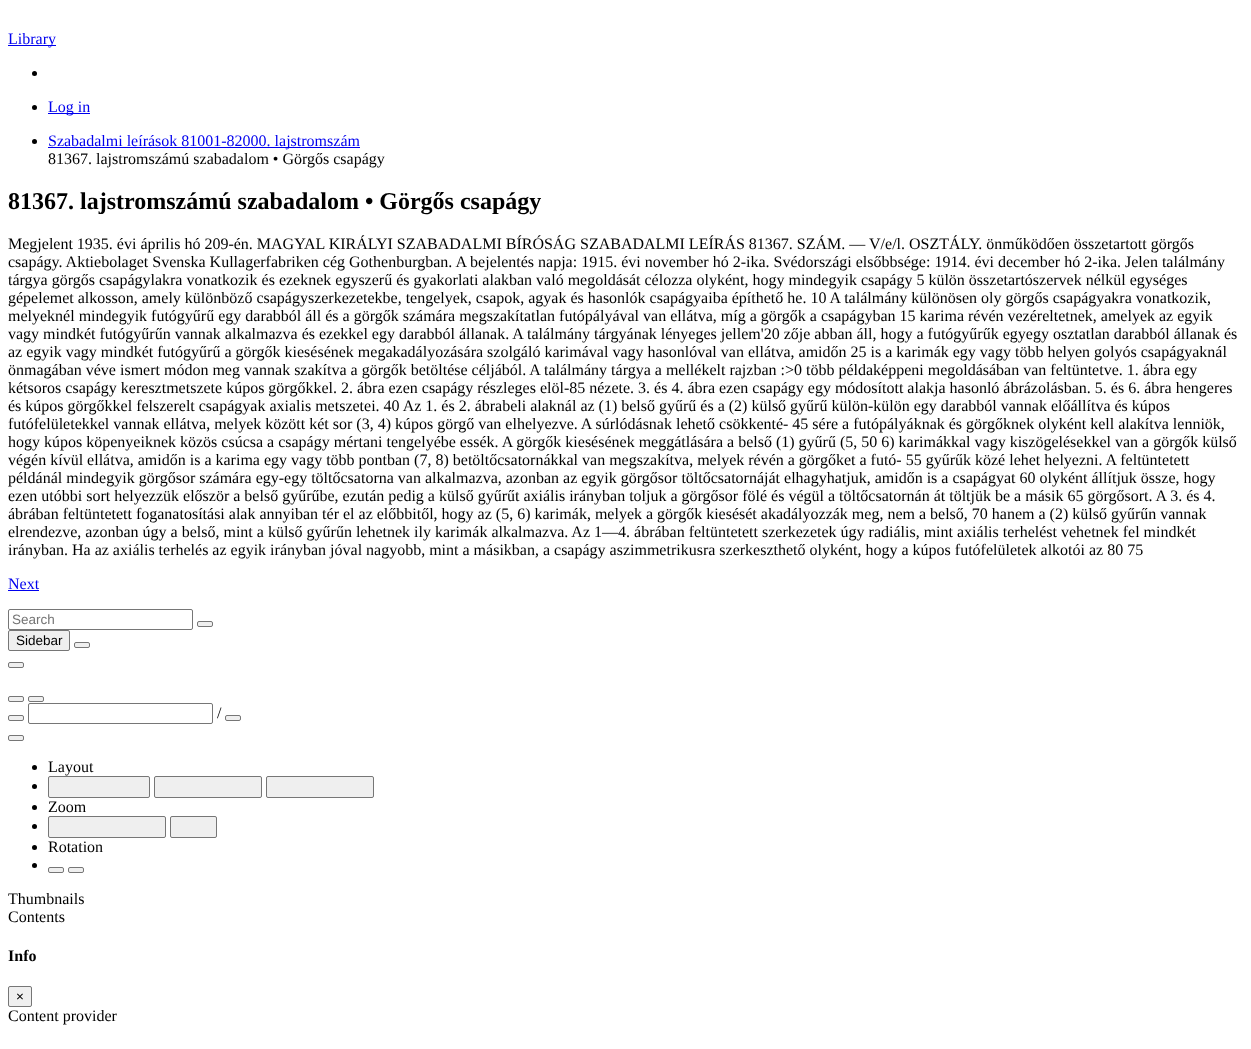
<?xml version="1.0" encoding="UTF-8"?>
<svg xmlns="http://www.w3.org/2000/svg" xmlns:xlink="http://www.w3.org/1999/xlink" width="1251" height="1049">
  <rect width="100%" height="100%" fill="#ffffff" />
  <rect x="8" y="45" width="48" height="1" fill="#0000ee" />
  <circle cx="34.5" cy="73.5" r="2.5" fill="#000000" />
  <circle cx="34.5" cy="107.5" r="2.5" fill="#000000" />
  <rect x="48" y="113" width="42" height="1" fill="#0000ee" />
  <circle cx="34.5" cy="141.5" r="2.5" fill="#000000" />
  <rect x="48" y="147" width="312" height="1" fill="#0000ee" />
  <rect x="8" y="590" width="31" height="1" fill="#0000ee" />
  <rect x="8.5" y="609.5" width="184" height="20" rx="1.5" fill="none" stroke="#767676" />
  <rect x="197.5" y="621.5" width="15" height="5" rx="1.5" fill="#efefef" stroke="#767676" />
  <rect x="8.5" y="630.5" width="61" height="20" rx="1.5" fill="#efefef" stroke="#767676" />
  <rect x="74.5" y="642.5" width="15" height="5" rx="1.5" fill="#efefef" stroke="#767676" />
  <rect x="8.5" y="662.5" width="15" height="5" rx="1.5" fill="#efefef" stroke="#767676" />
  <rect x="8.5" y="696.5" width="15" height="5" rx="1.5" fill="#efefef" stroke="#767676" />
  <rect x="28.5" y="696.5" width="15" height="5" rx="1.5" fill="#efefef" stroke="#767676" />
  <rect x="8.5" y="715.5" width="15" height="5" rx="1.5" fill="#efefef" stroke="#767676" />
  <rect x="28.5" y="703.5" width="184" height="20" rx="1.5" fill="none" stroke="#767676" />
  <rect x="225.5" y="715.5" width="15" height="5" rx="1.5" fill="#efefef" stroke="#767676" />
  <rect x="8.5" y="735.5" width="15" height="5" rx="1.5" fill="#efefef" stroke="#767676" />
  <circle cx="34.5" cy="767.5" r="2.5" fill="#000000" />
  <circle cx="34.5" cy="786.5" r="2.5" fill="#000000" />
  <rect x="48.5" y="776.5" width="101" height="21" rx="1.5" fill="#efefef" stroke="#767676" />
  <rect x="154.5" y="776.5" width="107" height="21" rx="1.5" fill="#efefef" stroke="#767676" />
  <rect x="266.5" y="776.5" width="107" height="21" rx="1.5" fill="#efefef" stroke="#767676" />
  <circle cx="34.5" cy="807.5" r="2.5" fill="#000000" />
  <circle cx="34.5" cy="826.5" r="2.5" fill="#000000" />
  <rect x="48.5" y="816.5" width="117" height="21" rx="1.5" fill="#efefef" stroke="#767676" />
  <rect x="170.5" y="816.5" width="46" height="21" rx="1.5" fill="#efefef" stroke="#767676" />
  <circle cx="34.5" cy="847.5" r="2.5" fill="#000000" />
  <circle cx="34.5" cy="865.5" r="2.5" fill="#000000" />
  <rect x="48.5" y="867.5" width="15" height="5" rx="1.5" fill="#efefef" stroke="#767676" />
  <rect x="68.5" y="867.5" width="15" height="5" rx="1.5" fill="#efefef" stroke="#767676" />
  <rect x="8.5" y="986.5" width="23" height="20" rx="1.5" fill="#efefef" stroke="#767676" />
  <text x="8" y="44" style="font-family: Liberation Serif; font-size: 16px; fill: #0000ee">Library</text>
  <text x="48" y="112" style="font-family: Liberation Serif; font-size: 16px; fill: #0000ee">Log in</text>
  <text x="48" y="146" style="font-family: Liberation Serif; font-size: 16px; fill: #0000ee">Szabadalmi leírások 81001-82000. lajstromszám</text>
  <text x="48" y="164" style="font-family: Liberation Serif; font-size: 16px; fill: #000000">81367. lajstromszámú szabadalom • Görgős csapágy</text>
  <text x="8" y="209" style="font-family: Liberation Serif; font-size: 24px; font-weight: bold; fill: #000000">81367. lajstromszámú szabadalom • Görgős csapágy</text>
  <text x="8" y="249" style="font-family: Liberation Serif; font-size: 16px; fill: #000000">Megjelent 1935. évi április hó 209-én. MAGYAL KIRÁLYI SZABADALMI BÍRÓSÁG SZABADALMI LEÍRÁS 81367. SZÁM. — V/e/l. OSZTÁLY. önműködően összetartott görgős</text>
  <text x="8" y="267" style="font-family: Liberation Serif; font-size: 16px; fill: #000000">csapágy. Aktiebolaget Svenska Kullagerfabriken cég Gothenburgban. A bejelentés napja: 1915. évi november hó 2-ika. Svédországi elsőbbsége: 1914. évi december hó 2-ika. Jelen találmány</text>
  <text x="8" y="285" style="font-family: Liberation Serif; font-size: 16px; fill: #000000">tárgya görgős csapágylakra vonatkozik és ezeknek egyszerű és gyakorlati alakban való megoldását célozza olyként, hogy mindegyik csapágy 5 külön összetartószervek nélkül egységes</text>
  <text x="8" y="303" style="font-family: Liberation Serif; font-size: 16px; fill: #000000">gépelemet alkosson, amely különböző csapágyszerkezetekbe, tengelyek, csapok, agyak és hasonlók csapágyaiba építhető he. 10 A találmány különösen oly görgős csapágyakra vonatkozik,</text>
  <text x="8" y="321" style="font-family: Liberation Serif; font-size: 16px; fill: #000000">melyeknél mindegyik futógyűrű egy darabból áll és a görgők számára megszakítatlan futópályával van ellátva, míg a görgők a csapágyban 15 karima révén vezéreltetnek, amelyek az egyik</text>
  <text x="8" y="339" style="font-family: Liberation Serif; font-size: 16px; fill: #000000">vagy mindkét futógyűrűn vannak alkalmazva és ezekkel egy darabból állanak. A találmány tárgyának lényeges jellem'20 zője abban áll, hogy a futógyűrűk egyegy osztatlan darabból állanak és</text>
  <text x="8" y="357" style="font-family: Liberation Serif; font-size: 16px; fill: #000000">az egyik vagy mindkét futógyűrű a görgők kiesésének megakadályozására szolgáló karimával vagy hasonlóval van ellátva, amidőn 25 is a karimák egy vagy több helyen golyós csapágyaknál</text>
  <text x="8" y="375" style="font-family: Liberation Serif; font-size: 16px; fill: #000000">önmagában véve ismert módon meg vannak szakítva a görgők betöltése céljából. A találmány tárgya a mellékelt rajzban :&gt;0 több példaképpeni megoldásában van feltüntetve. 1. ábra egy</text>
  <text x="8" y="393" style="font-family: Liberation Serif; font-size: 16px; fill: #000000">kétsoros csapágy keresztmetszete kúpos görgőkkel. 2. ábra ezen csapágy részleges elöl-85 nézete. 3. és 4. ábra ezen csapágy egy módosított alakja hasonló ábrázolásban. 5. és 6. ábra hengeres</text>
  <text x="8" y="411" style="font-family: Liberation Serif; font-size: 16px; fill: #000000">és kúpos görgőkkel felszerelt csapágyak axialis metszetei. 40 Az 1. és 2. ábrabeli alaknál az (1) belső gyűrű és a (2) külső gyűrű külön-külön egy darabból vannak előállítva és kúpos</text>
  <text x="8" y="429" style="font-family: Liberation Serif; font-size: 16px; fill: #000000">futófelületekkel vannak ellátva, melyek között két sor (3, 4) kúpos görgő van elhelyezve. A súrlódásnak lehető csökkenté- 45 sére a futópályáknak és görgőknek olyként kell alakítva lenniök,</text>
  <text x="8" y="447" style="font-family: Liberation Serif; font-size: 16px; fill: #000000">hogy kúpos köpenyeiknek közös csúcsa a csapágy mértani tengelyébe essék. A görgők kiesésének meggátlására a belső (1) gyűrű (5, 50 6) karimákkal vagy kiszögelésekkel van a görgők külső</text>
  <text x="8" y="465" style="font-family: Liberation Serif; font-size: 16px; fill: #000000">végén kívül ellátva, amidőn is a karima egy vagy több pontban (7, 8) betöltőcsatornákkal van megszakítva, melyek révén a görgőket a futó- 55 gyűrűk közé lehet helyezni. A feltüntetett</text>
  <text x="8" y="483" style="font-family: Liberation Serif; font-size: 16px; fill: #000000">példánál mindegyik görgősor számára egy-egy töltőcsatorna van alkalmazva, azonban az egyik görgősor töltőcsatornáját elhagyhatjuk, amidőn is a csapágyat 60 olyként állítjuk össze, hogy</text>
  <text x="8" y="501" style="font-family: Liberation Serif; font-size: 16px; fill: #000000">ezen utóbbi sort helyezzük először a belső gyűrűbe, ezután pedig a külső gyűrűt axiális irányban toljuk a görgősor fölé és végül a töltőcsatornán át töltjük be a másik 65 görgősort. A 3. és 4.</text>
  <text x="8" y="519" style="font-family: Liberation Serif; font-size: 16px; fill: #000000">ábrában feltüntetett foganatosítási alak annyiban tér el az előbbitől, hogy az (5, 6) karimák, melyek a görgők kiesését akadályozzák meg, nem a belső, 70 hanem a (2) külső gyűrűn vannak</text>
  <text x="8" y="537" style="font-family: Liberation Serif; font-size: 16px; fill: #000000">elrendezve, azonban úgy a belső, mint a külső gyűrűn lehetnek ily karimák alkalmazva. Az 1—4. ábrában feltüntetett szerkezetek úgy radiális, mint axiális terhelést vehetnek fel mindkét</text>
  <text x="8" y="555" style="font-family: Liberation Serif; font-size: 16px; fill: #000000">irányban. Ha az axiális terhelés az egyik irányban jóval nagyobb, mint a másikban, a csapágy aszimmetrikusra szerkeszthető olyként, hogy a kúpos futófelületek alkotói az 80 75</text>
  <text x="8" y="589" style="font-family: Liberation Serif; font-size: 16px; fill: #0000ee">Next</text>
  <text x="12" y="624" style="font-family: Liberation Sans; font-size: 13.5px; fill: #757575">Search</text>
  <text x="16" y="645" style="font-family: Liberation Sans; font-size: 13.5px; fill: #000000">Sidebar</text>
  <text x="217" y="718" style="font-family: Liberation Serif; font-size: 16px; fill: #000000">/</text>
  <text x="48" y="772" style="font-family: Liberation Serif; font-size: 16px; fill: #000000">Layout</text>
  <text x="48" y="812" style="font-family: Liberation Serif; font-size: 16px; fill: #000000">Zoom</text>
  <text x="48" y="852" style="font-family: Liberation Serif; font-size: 16px; fill: #000000">Rotation</text>
  <text x="8" y="904" style="font-family: Liberation Serif; font-size: 16px; fill: #000000">Thumbnails</text>
  <text x="8" y="922" style="font-family: Liberation Serif; font-size: 16px; fill: #000000">Contents</text>
  <text x="8" y="961" style="font-family: Liberation Serif; font-size: 16px; font-weight: bold; fill: #000000">Info</text>
  <text x="16" y="1001" style="font-family: Liberation Sans; font-size: 13.5px; fill: #000000">×</text>
  <text x="8" y="1021" style="font-family: Liberation Serif; font-size: 16px; fill: #000000">Content provider</text>
</svg>
